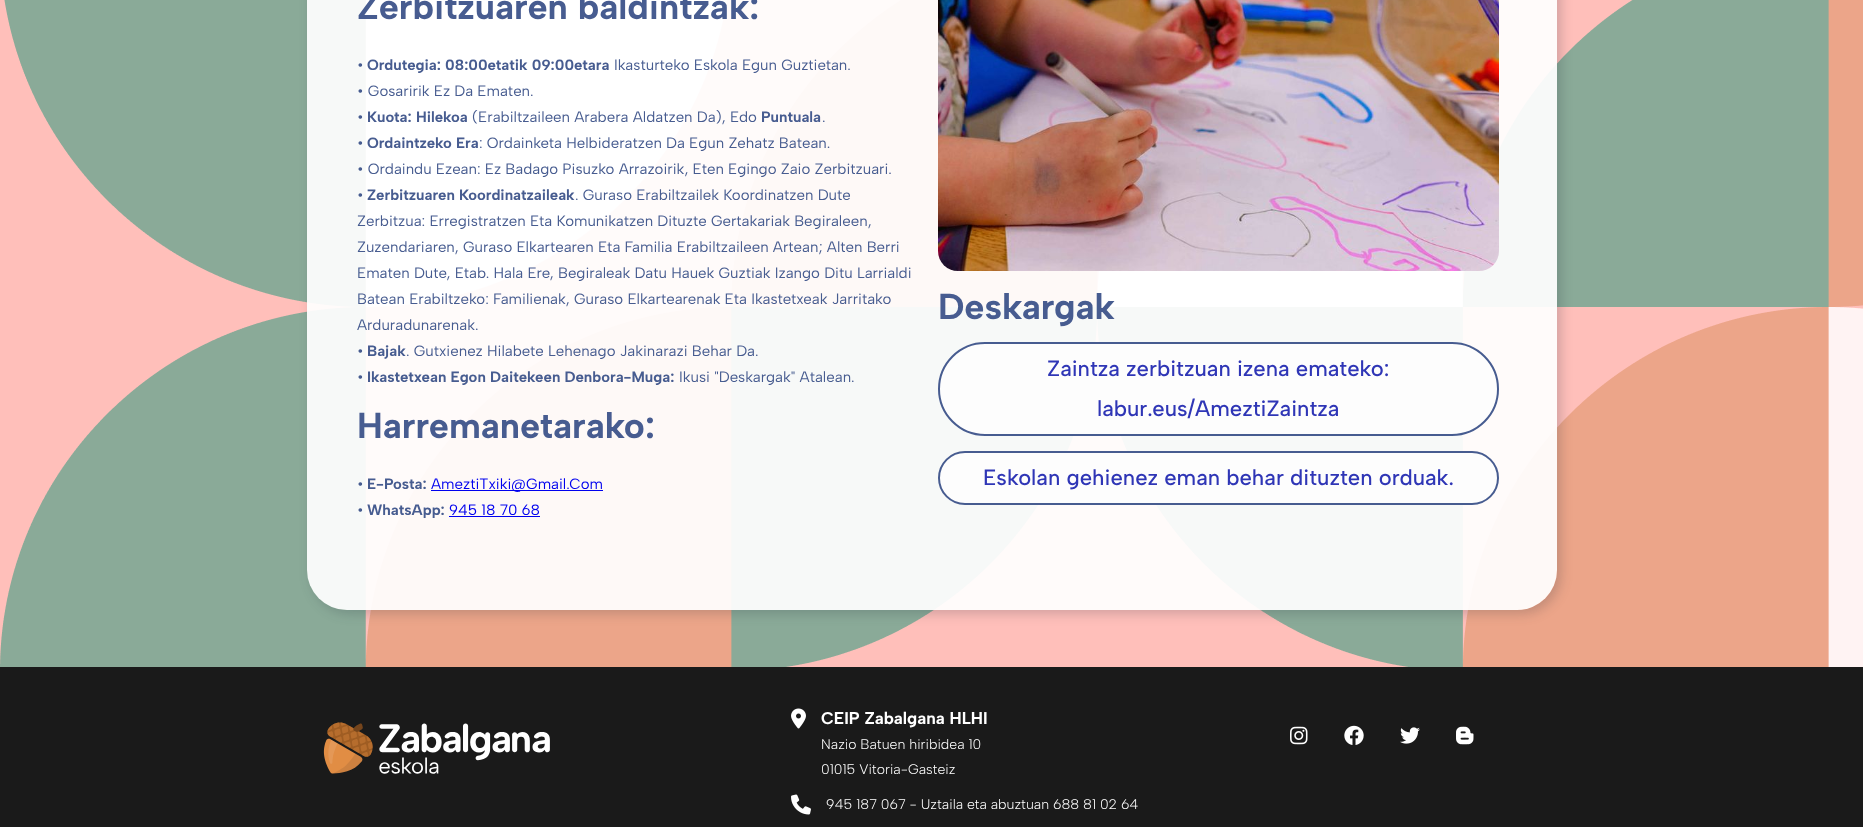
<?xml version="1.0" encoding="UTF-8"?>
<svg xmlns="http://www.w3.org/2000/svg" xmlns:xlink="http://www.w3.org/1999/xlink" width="1863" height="827">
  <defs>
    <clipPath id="clip1"><path d="M 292 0 h 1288 v 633 h -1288 z m 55 -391 h 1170 c 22 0 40 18 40 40 v 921 c 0 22 -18 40 -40 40 h -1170 c -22 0 -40 -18 -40 -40 v -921 c 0 -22 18 -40 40 -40 z" clip-rule="evenodd" /></clipPath>
  </defs>
  <rect width="100%" height="100%" fill="#ffffff" />
  <image x="0" y="0" width="1863" height="667" xlink:href="image1.png" />
  <g clip-path="url(#clip1)">
    <rect x="311" y="-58" width="1250" height="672" rx="40" fill="#1c2636" fill-opacity="0.2" filter="blur(6px)" />
  </g>
  <rect x="307" y="-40" width="1250" height="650" rx="40" fill="#ffffff" fill-opacity="0.93" />
  <rect x="431" y="490" width="172" height="1" fill="#0000ee" />
  <rect x="449" y="516" width="91" height="1" fill="#0000ee" />
  <image x="938" y="0" width="561" height="271" xlink:href="image2.png" />
  <rect x="939" y="343" width="559" height="92" rx="46" fill="#fdfdfd" stroke="#475c90" stroke-width="2" />
  <rect x="939" y="452" width="559" height="52" rx="26" fill="#fdfdfd" stroke="#475c90" stroke-width="2" />
  <rect y="667" width="1863" height="160" fill="#1a1a1a" />
  <image x="323" y="722" width="227" height="52" xlink:href="image3.png" />
  <image x="791" y="708" width="15" height="21" xlink:href="image4.png" />
  <image x="791" y="794" width="20" height="21" xlink:href="image5.png" />
  <image x="1290" y="726" width="18" height="19" xlink:href="image6.png" />
  <image x="1344" y="725" width="20" height="20" xlink:href="image7.png" />
  <image x="1400" y="727" width="20" height="17" xlink:href="image8.png" />
  <image x="1456" y="726" width="18" height="19" xlink:href="image9.png" />
  <text x="357" y="19" style="font-family: Albert Sans; font-size: 36px; font-weight: bold; fill: #475c90">Zerbitzuaren baldintzak:</text>
  <text x="357" y="70" style="font-family: Albert Sans; font-size: 15px; fill: #475c90">•</text>
  <text x="367" y="70" style="font-family: Albert Sans; font-size: 15px; font-weight: bold; fill: #475c90">Ordutegia: 08:00etatik 09:00etara</text>
  <text x="614" y="70" style="font-family: Albert Sans; font-size: 15px; fill: #475c90">Ikasturteko Eskola Egun Guztietan.</text>
  <text x="357" y="96" style="font-family: Albert Sans; font-size: 15px; fill: #475c90">• Gosaririk Ez Da Ematen.</text>
  <text x="357" y="122" style="font-family: Albert Sans; font-size: 15px; fill: #475c90">•</text>
  <text x="367" y="122" style="font-family: Albert Sans; font-size: 15px; font-weight: bold; fill: #475c90">Kuota: Hilekoa</text>
  <text x="472" y="122" style="font-family: Albert Sans; font-size: 15px; fill: #475c90">(Erabiltzaileen Arabera Aldatzen Da), Edo</text>
  <text x="761" y="122" style="font-family: Albert Sans; font-size: 15px; font-weight: bold; fill: #475c90">Puntuala</text>
  <text x="822" y="122" style="font-family: Albert Sans; font-size: 15px; fill: #475c90">.</text>
  <text x="357" y="148" style="font-family: Albert Sans; font-size: 15px; fill: #475c90">•</text>
  <text x="367" y="148" style="font-family: Albert Sans; font-size: 15px; font-weight: bold; fill: #475c90">Ordaintzeko Era</text>
  <text x="479" y="148" style="font-family: Albert Sans; font-size: 15px; fill: #475c90">: Ordainketa Helbideratzen Da Egun Zehatz Batean.</text>
  <text x="357" y="174" style="font-family: Albert Sans; font-size: 15px; fill: #475c90">• Ordaindu Ezean: Ez Badago Pisuzko Arrazoirik, Eten Egingo Zaio Zerbitzuari.</text>
  <text x="357" y="200" style="font-family: Albert Sans; font-size: 15px; fill: #475c90">•</text>
  <text x="367" y="200" style="font-family: Albert Sans; font-size: 15px; font-weight: bold; fill: #475c90">Zerbitzuaren Koordinatzaileak</text>
  <text x="575" y="200" style="font-family: Albert Sans; font-size: 15px; fill: #475c90">. Guraso Erabiltzailek Koordinatzen Dute</text>
  <text x="357" y="226" style="font-family: Albert Sans; font-size: 15px; fill: #475c90">Zerbitzua: Erregistratzen Eta Komunikatzen Dituzte Gertakariak Begiraleen,</text>
  <text x="357" y="252" style="font-family: Albert Sans; font-size: 15px; fill: #475c90">Zuzendariaren, Guraso Elkartearen Eta Familia Erabiltzaileen Artean; Alten Berri</text>
  <text x="357" y="278" style="font-family: Albert Sans; font-size: 15px; fill: #475c90">Ematen Dute, Etab. Hala Ere, Begiraleak Datu Hauek Guztiak Izango Ditu Larrialdi</text>
  <text x="357" y="304" style="font-family: Albert Sans; font-size: 15px; fill: #475c90">Batean Erabiltzeko: Familienak, Guraso Elkartearenak Eta Ikastetxeak Jarritako</text>
  <text x="357" y="330" style="font-family: Albert Sans; font-size: 15px; fill: #475c90">Arduradunarenak.</text>
  <text x="357" y="356" style="font-family: Albert Sans; font-size: 15px; fill: #475c90">•</text>
  <text x="367" y="356" style="font-family: Albert Sans; font-size: 15px; font-weight: bold; fill: #475c90">Bajak</text>
  <text x="406" y="356" style="font-family: Albert Sans; font-size: 15px; fill: #475c90">. Gutxienez Hilabete Lehenago Jakinarazi Behar Da.</text>
  <text x="357" y="382" style="font-family: Albert Sans; font-size: 15px; fill: #475c90">•</text>
  <text x="367" y="382" style="font-family: Albert Sans; font-size: 15px; font-weight: bold; fill: #475c90">Ikastetxean Egon Daitekeen Denbora-Muga:</text>
  <text x="679" y="382" style="font-family: Albert Sans; font-size: 15px; fill: #475c90">Ikusi "Deskargak" Atalean.</text>
  <text x="357" y="438" style="font-family: Albert Sans; font-size: 36px; font-weight: bold; fill: #475c90">Harremanetarako:</text>
  <text x="357" y="489" style="font-family: Albert Sans; font-size: 15px; fill: #475c90">•</text>
  <text x="367" y="489" style="font-family: Albert Sans; font-size: 15px; font-weight: bold; fill: #475c90">E-Posta:</text>
  <text x="431" y="489" style="font-family: Albert Sans; font-size: 15px; fill: #0000ee">AmeztiTxiki@Gmail.Com</text>
  <text x="357" y="515" style="font-family: Albert Sans; font-size: 15px; fill: #475c90">•</text>
  <text x="367" y="515" style="font-family: Albert Sans; font-size: 15px; font-weight: bold; fill: #475c90">WhatsApp:</text>
  <text x="449" y="515" style="font-family: Albert Sans; font-size: 15px; fill: #0000ee">945 18 70 68</text>
  <text x="938" y="319" style="font-family: Albert Sans; font-size: 36px; font-weight: bold; fill: #475c90">Deskargak</text>
  <text x="1047" y="376" style="font-family: Albert Sans; font-size: 22px; font-weight: 500; fill: #2f36b6">Zaintza zerbitzuan izena emateko:</text>
  <text x="1097" y="416" style="font-family: Albert Sans; font-size: 22px; font-weight: 500; fill: #2f36b6">labur.eus/AmeztiZaintza</text>
  <text x="983" y="485" style="font-family: Albert Sans; font-size: 22px; font-weight: 500; fill: #2f36b6">Eskolan gehienez eman behar dituzten orduak.</text>
  <text x="821" y="724" style="font-family: Albert Sans; font-size: 17px; font-weight: bold; fill: #ffffff">CEIP Zabalgana HLHI</text>
  <text x="821" y="749" style="font-family: Albert Sans; font-size: 14px; font-weight: 300; fill: #ffffff">Nazio Batuen hiribidea 10</text>
  <text x="821" y="774" style="font-family: Albert Sans; font-size: 14px; font-weight: 300; fill: #ffffff">01015 Vitoria-Gasteiz</text>
  <text x="826" y="809" style="font-family: Albert Sans; font-size: 14px; font-weight: 300; fill: #ffffff">945 187 067 - Uztaila eta abuztuan 688 81 02 64</text>
</svg>
